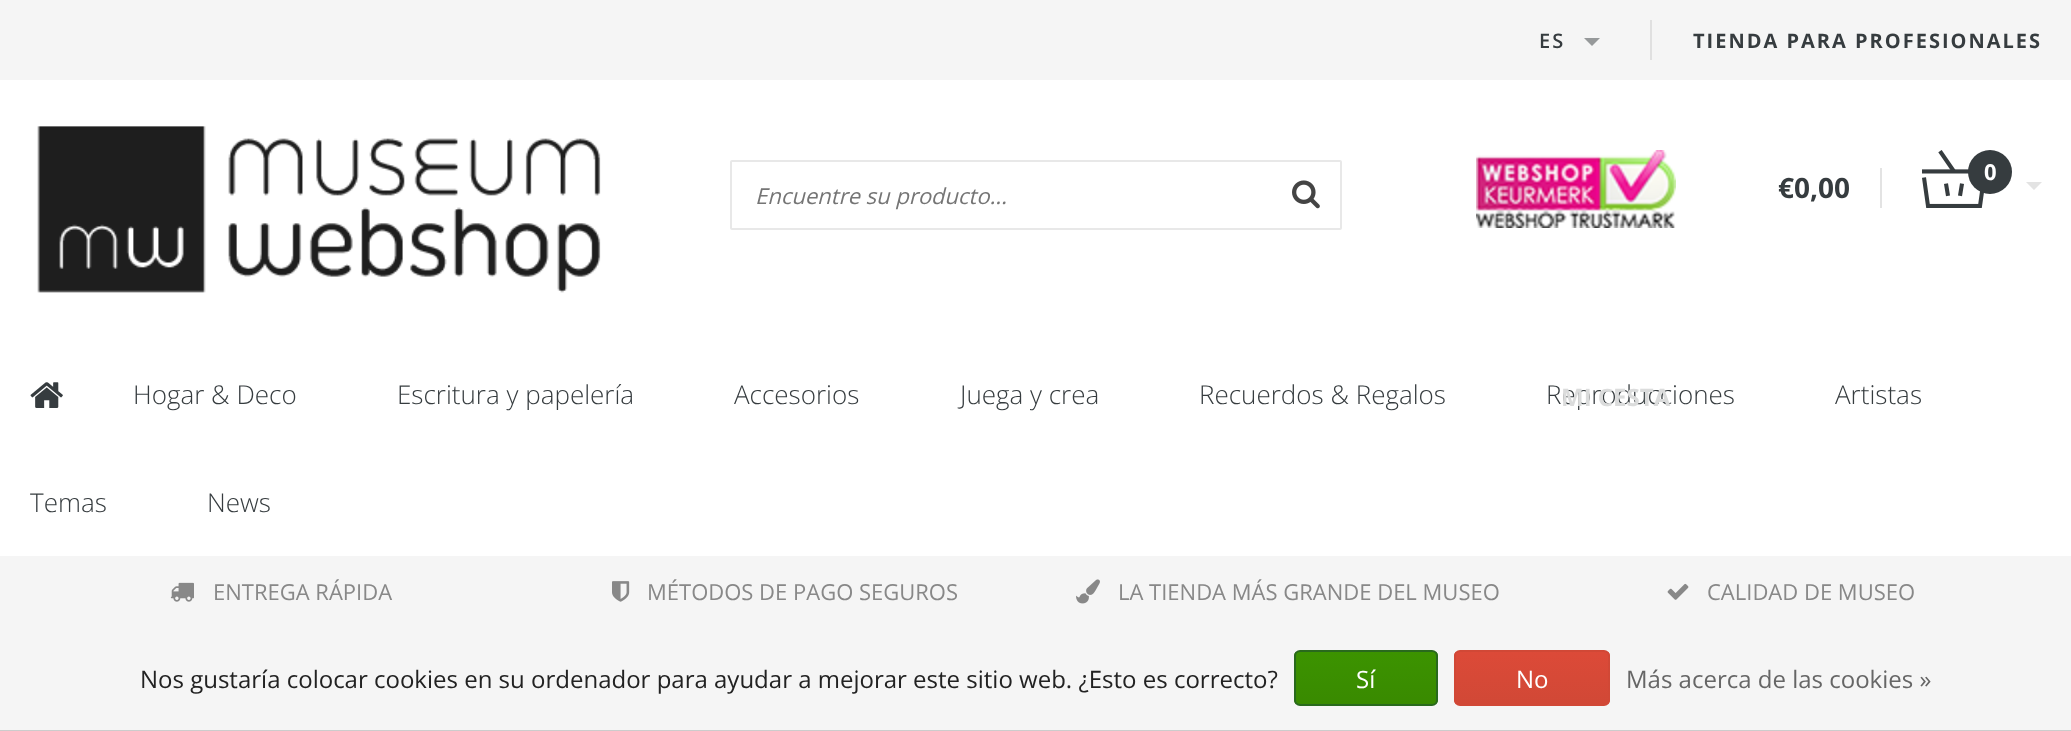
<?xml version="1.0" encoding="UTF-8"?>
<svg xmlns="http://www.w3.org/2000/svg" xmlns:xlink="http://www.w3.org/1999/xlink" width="2071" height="731">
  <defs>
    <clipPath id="clip1"><rect x="1294" y="650" width="144" height="56" rx="6" /></clipPath>
    <linearGradient id="g1" gradientUnits="userSpaceOnUse" x1="1366" y1="652" x2="1366" y2="704"><stop offset="0" stop-color="#3c9300" /><stop offset="1" stop-color="#398a00" /></linearGradient>
    <clipPath id="clip2"><rect x="1454" y="650" width="156" height="56" rx="6" /></clipPath>
    <linearGradient id="g2" gradientUnits="userSpaceOnUse" x1="1532" y1="652" x2="1532" y2="704"><stop offset="0" stop-color="#dc4a38" /><stop offset="1" stop-color="#d14836" /></linearGradient>
  </defs>
  <rect width="100%" height="100%" fill="#ffffff" />
  <rect width="2071" height="80" fill="#f5f5f5" />
  <path d="M 1584 38 h 16 l -8 8 z" fill="#96999a" />
  <rect x="1650" y="20" width="2" height="40" fill="#e0e0e0" />
  <image x="37" y="126" width="564" height="167" xlink:href="image1.png" />
  <image x="1476" y="150" width="200" height="78" xlink:href="image2.png" />
  <rect x="731" y="161" width="610" height="68" rx="1" fill="none" stroke="#e8e8e8" stroke-width="2" />
  <image x="1292" y="180" width="28" height="29" xlink:href="image3.png" />
  <image x="1922" y="150" width="120" height="58" xlink:href="image4.png" />
  <rect x="1880" y="168" width="2" height="40" fill="#e3e3e3" />
  <circle cx="1990" cy="172" r="22" fill="#363c3f" />
  <image x="30" y="382" width="33" height="26" xlink:href="image5.png" />
  <rect y="556" width="2071" height="174" fill="#f5f5f5" />
  <image x="170" y="582" width="24" height="20" xlink:href="image6.png" />
  <image x="612" y="581" width="18" height="21" xlink:href="image7.png" />
  <image x="1076" y="579" width="24" height="25" xlink:href="image8.png" />
  <image x="1667" y="583" width="22" height="17" xlink:href="image9.png" />
  <rect y="730" width="2071" height="1" fill="#cccccc" />
  <g clip-path="url(#clip1)">
    <rect x="1294" y="652" width="144" height="52" fill="url(#g1)" />
  </g>
  <rect x="1295" y="651" width="142" height="54" rx="5" fill="none" stroke="#29691d" stroke-width="2" />
  <g clip-path="url(#clip2)">
    <rect x="1454" y="652" width="156" height="52" fill="url(#g2)" />
  </g>
  <rect x="1455" y="651" width="154" height="54" rx="5" fill="none" stroke="#d14836" stroke-width="2" />
  <text x="1539" y="48" style="font-family: Open Sans; font-size: 20px; font-weight: 600; letter-spacing: 2px; fill: #363c3f">ES</text>
  <text x="1693" y="48" style="font-family: Open Sans; font-size: 20px; font-weight: bold; letter-spacing: 2px; fill: #363c3f">TIENDA PARA PROFESIONALES</text>
  <text x="755" y="204" style="font-family: Open Sans; font-size: 22px; font-style: italic; fill: #757575">Encuentre su producto...</text>
  <text x="1984" y="180" style="font-family: Open Sans; font-size: 22px; font-weight: bold; fill: #ffffff">0</text>
  <text x="1778" y="198" style="font-family: Open Sans; font-size: 28px; font-weight: bold; fill: #363c3f">€0,00</text>
  <text x="133" y="404" style="font-family: Open Sans; font-size: 26px; font-weight: 300; fill: #363c3f">Hogar &amp; Deco</text>
  <text x="397" y="404" style="font-family: Open Sans; font-size: 26px; font-weight: 300; fill: #363c3f">Escritura y papelería</text>
  <text x="734" y="404" style="font-family: Open Sans; font-size: 26px; font-weight: 300; fill: #363c3f">Accesorios</text>
  <text x="960" y="404" style="font-family: Open Sans; font-size: 26px; font-weight: 300; fill: #363c3f">Juega y crea</text>
  <text x="1199" y="404" style="font-family: Open Sans; font-size: 26px; font-weight: 300; fill: #363c3f">Recuerdos &amp; Regalos</text>
  <text x="1546" y="404" style="font-family: Open Sans; font-size: 26px; font-weight: 300; fill: #363c3f">Reproducciones</text>
  <text x="1561" y="406" style="font-family: Open Sans; font-size: 24px; font-weight: bold; fill: #dbdcdc">MI CESTA</text>
  <text x="1835" y="404" style="font-family: Open Sans; font-size: 26px; font-weight: 300; fill: #363c3f">Artistas</text>
  <text x="30" y="512" style="font-family: Open Sans; font-size: 26px; font-weight: 300; fill: #363c3f">Temas</text>
  <text x="207" y="512" style="font-family: Open Sans; font-size: 26px; font-weight: 300; fill: #363c3f">News</text>
  <text x="213" y="600" style="font-family: Open Sans; font-size: 22px; fill: #888888">ENTREGA RÁPIDA</text>
  <text x="647" y="600" style="font-family: Open Sans; font-size: 22px; fill: #888888">MÉTODOS DE PAGO SEGUROS</text>
  <text x="1118" y="600" style="font-family: Open Sans; font-size: 22px; fill: #888888">LA TIENDA MÁS GRANDE DEL MUSEO</text>
  <text x="1707" y="600" style="font-family: Open Sans; font-size: 22px; fill: #888888">CALIDAD DE MUSEO</text>
  <text x="140" y="688" style="font-family: Open Sans; font-size: 24px; fill: #222222">Nos gustaría colocar cookies en su ordenador para ayudar a mejorar este sitio web. ¿Esto es correcto?</text>
  <text x="1356" y="688" style="font-family: Open Sans; font-size: 24px; fill: #ffffff">Sí</text>
  <text x="1516" y="688" style="font-family: Open Sans; font-size: 24px; fill: #ffffff">No</text>
  <text x="1626" y="688" style="font-family: Open Sans; font-size: 24px; fill: #666666">Más acerca de las cookies »</text>
</svg>
